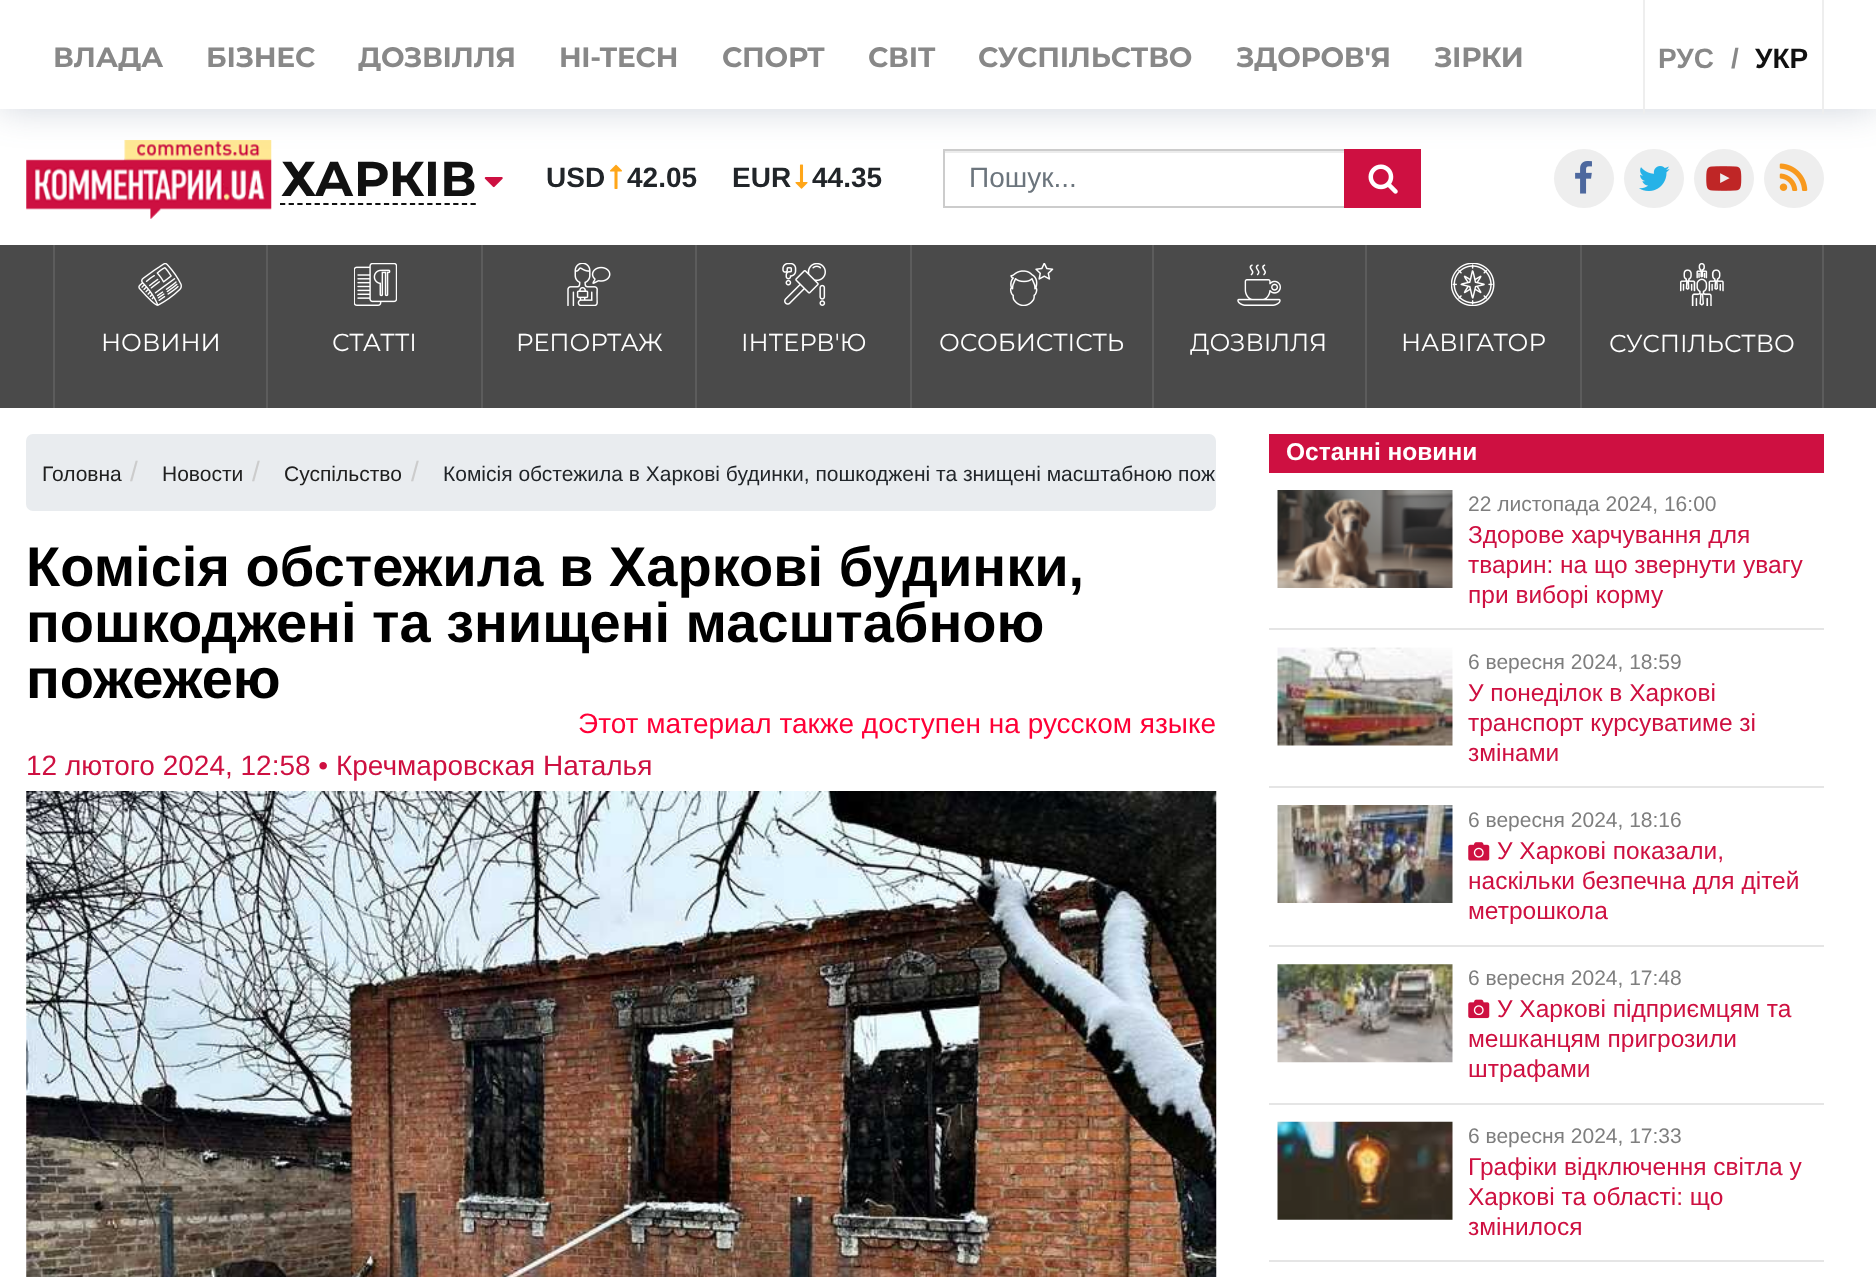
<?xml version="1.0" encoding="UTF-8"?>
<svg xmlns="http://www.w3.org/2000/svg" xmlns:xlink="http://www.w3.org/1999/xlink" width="1876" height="1277">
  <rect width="100%" height="100%" fill="#ffffff" />
  <image x="26" y="140" width="246" height="79" xlink:href="image1.png" />
  <image x="610" y="164" width="12" height="25" xlink:href="image3.png" />
  <image x="795" y="164" width="13" height="25" xlink:href="image4.png" />
  <rect x="945" y="151" width="399" height="2" fill="#ececec" />
  <rect x="944" y="150" width="476" height="57" fill="none" stroke="#cccccc" stroke-width="2" />
  <rect x="1344" y="149" width="77" height="59" fill="#ce1041" />
  <image x="1368" y="164" width="30" height="30" xlink:href="image5.png" />
  <rect x="1554" y="149" width="60" height="59" rx="29.5" fill="#eeeeee" />
  <image x="1575" y="161" width="17" height="33" xlink:href="image6.png" />
  <rect x="1624" y="149" width="60" height="59" rx="29.5" fill="#eeeeee" />
  <rect x="1694" y="149" width="60" height="59" rx="29.5" fill="#eeeeee" />
  <rect x="1764" y="149" width="60" height="59" rx="29.5" fill="#eeeeee" />
  <image x="1779" y="163" width="29" height="28" xlink:href="image9.png" />
  <rect width="1876" height="109" fill="#3e5375" fill-opacity="0.25" filter="blur(18.5px)" />
  <rect width="1876" height="109" fill="#ffffff" />
  <rect x="1822" width="2" height="114" fill="#eeeeee" />
  <rect x="1643" width="2" height="114" fill="#eeeeee" />
  <path d="M 280 204 h 196" fill="none" stroke="#111111" stroke-width="1.8" stroke-dasharray="5.25 3.41" />
  <image x="484" y="177" width="19" height="11" xlink:href="image2.png" />
  <image x="1639" y="166" width="31" height="25" xlink:href="image7.png" />
  <image x="1706" y="166" width="36" height="25" xlink:href="image8.png" />
  <rect y="245" width="1876" height="163" fill="#4a4a4a" />
  <rect x="53" y="245" width="2" height="163" fill="#5c5c5c" />
  <image x="138" y="263" width="44" height="43" xlink:href="image10.png" />
  <rect x="266" y="245" width="2" height="163" fill="#5c5c5c" />
  <image x="354" y="263" width="43" height="43" xlink:href="image11.png" />
  <rect x="481" y="245" width="2" height="163" fill="#5c5c5c" />
  <image x="567" y="263" width="44" height="43" xlink:href="image12.png" />
  <rect x="695" y="245" width="2" height="163" fill="#5c5c5c" />
  <image x="782" y="263" width="44" height="43" xlink:href="image13.png" />
  <rect x="910" y="245" width="2" height="163" fill="#5c5c5c" />
  <image x="1010" y="263" width="44" height="43" xlink:href="image14.png" />
  <rect x="1152" y="245" width="2" height="163" fill="#5c5c5c" />
  <image x="1237" y="264" width="44" height="42" xlink:href="image15.png" />
  <rect x="1365" y="245" width="2" height="163" fill="#5c5c5c" />
  <image x="1451" y="263" width="44" height="43" xlink:href="image16.png" />
  <rect x="1822" y="245" width="2" height="163" fill="#5c5c5c" />
  <rect x="1580" y="245" width="2" height="163" fill="#5c5c5c" />
  <image x="1680" y="263" width="44" height="43" xlink:href="image17.png" />
  <rect x="26" y="434" width="1190" height="77" rx="7" fill="#e9ecef" />
  <image x="26" y="791" width="1191" height="486" xlink:href="image18.png" />
  <rect x="1269" y="434" width="555" height="39" fill="#ce1041" />
  <rect x="1269" y="628" width="555" height="2" fill="#e5e5e5" />
  <image x="1277" y="490" width="176" height="98" xlink:href="image19.png" />
  <rect x="1269" y="786" width="555" height="2" fill="#e5e5e5" />
  <image x="1277" y="647" width="176" height="99" xlink:href="image20.png" />
  <rect x="1269" y="945" width="555" height="2" fill="#e5e5e5" />
  <image x="1277" y="805" width="176" height="98" xlink:href="image21.png" />
  <image x="1468" y="842" width="22" height="19" xlink:href="image22.png" />
  <rect x="1269" y="1103" width="555" height="2" fill="#e5e5e5" />
  <image x="1277" y="964" width="176" height="99" xlink:href="image23.png" />
  <image x="1468" y="999" width="22" height="20" xlink:href="image24.png" />
  <rect x="1269" y="1260" width="555" height="2" fill="#e5e5e5" />
  <image x="1277" y="1121" width="176" height="99" xlink:href="image25.png" />
  <text x="53" y="67" style="font-family: Montserrat; font-size: 28px; font-weight: bold; letter-spacing: -0.25px; fill: #888888">ВЛАДА</text>
  <text x="206" y="67" style="font-family: Montserrat; font-size: 28px; font-weight: bold; letter-spacing: -0.25px; fill: #888888">БІЗНЕС</text>
  <text x="358" y="67" style="font-family: Montserrat; font-size: 28px; font-weight: bold; letter-spacing: -0.25px; fill: #888888">ДОЗВІЛЛЯ</text>
  <text x="559" y="67" style="font-family: Montserrat; font-size: 28px; font-weight: bold; letter-spacing: -0.25px; fill: #888888">HI-TECH</text>
  <text x="722" y="67" style="font-family: Montserrat; font-size: 28px; font-weight: bold; letter-spacing: -0.25px; fill: #888888">СПОРТ</text>
  <text x="868" y="67" style="font-family: Montserrat; font-size: 28px; font-weight: bold; letter-spacing: -0.25px; fill: #888888">СВІТ</text>
  <text x="978" y="67" style="font-family: Montserrat; font-size: 28px; font-weight: bold; letter-spacing: -0.25px; fill: #888888">СУСПІЛЬСТВО</text>
  <text x="1236" y="67" style="font-family: Montserrat; font-size: 28px; font-weight: bold; letter-spacing: -0.25px; fill: #888888">ЗДОРОВ'Я</text>
  <text x="1434" y="67" style="font-family: Montserrat; font-size: 28px; font-weight: bold; letter-spacing: -0.25px; fill: #888888">ЗІРКИ</text>
  <text x="1658" y="68" style="font-family: Liberation Sans; font-size: 28px; font-weight: bold; fill: #888888">РУС</text>
  <text x="1731" y="68" style="font-family: Liberation Sans; font-size: 28px; font-weight: bold; fill: #888888">/</text>
  <text x="1755" y="68" style="font-family: Liberation Sans; font-size: 28px; font-weight: bold; fill: #111111">УКР</text>
  <text x="281" y="196" style="font-family: Montserrat; font-size: 49px; font-weight: bold; fill: #111111">ХАРКІВ</text>
  <text x="546" y="187" style="font-family: Liberation Sans; font-size: 28px; font-weight: bold; fill: #212529">USD</text>
  <text x="627" y="187" style="font-family: Liberation Sans; font-size: 28px; font-weight: bold; fill: #212529">42.05</text>
  <text x="732" y="187" style="font-family: Liberation Sans; font-size: 28px; font-weight: bold; fill: #212529">EUR</text>
  <text x="812" y="187" style="font-family: Liberation Sans; font-size: 28px; font-weight: bold; fill: #212529">44.35</text>
  <text x="969" y="187" style="font-family: Liberation Sans; font-size: 28px; fill: #6c757d">Пошук...</text>
  <text x="101" y="351" style="font-family: Montserrat; font-size: 24.5px; fill: #ffffff">НОВИНИ</text>
  <text x="332" y="351" style="font-family: Montserrat; font-size: 24.5px; fill: #ffffff">СТАТТІ</text>
  <text x="516" y="351" style="font-family: Montserrat; font-size: 24.5px; fill: #ffffff">РЕПОРТАЖ</text>
  <text x="741" y="351" style="font-family: Montserrat; font-size: 24.5px; fill: #ffffff">ІНТЕРВ'Ю</text>
  <text x="939" y="351" style="font-family: Montserrat; font-size: 24.5px; fill: #ffffff">ОСОБИСТІСТЬ</text>
  <text x="1190" y="351" style="font-family: Montserrat; font-size: 24.5px; fill: #ffffff">ДОЗВІЛЛЯ</text>
  <text x="1401" y="351" style="font-family: Montserrat; font-size: 24.5px; fill: #ffffff">НАВІГАТОР</text>
  <text x="1609" y="352" style="font-family: Montserrat; font-size: 24.5px; fill: #ffffff">СУСПІЛЬСТВО</text>
  <text x="42" y="481" style="font-family: Liberation Sans; font-size: 21px; fill: #202020">Головна</text>
  <text x="130" y="481" style="font-family: Liberation Sans; font-size: 28px; fill: #cccccc">/</text>
  <text x="162" y="481" style="font-family: Liberation Sans; font-size: 21px; fill: #202020">Новости</text>
  <text x="252" y="481" style="font-family: Liberation Sans; font-size: 28px; fill: #cccccc">/</text>
  <text x="284" y="481" style="font-family: Liberation Sans; font-size: 21px; fill: #202020">Суспільство</text>
  <text x="411" y="481" style="font-family: Liberation Sans; font-size: 28px; fill: #cccccc">/</text>
  <text x="443" y="481" style="font-family: Liberation Sans; font-size: 21px; fill: #212529">Комісія обстежила в Харкові будинки, пошкоджені та знищені масштабною пож</text>
  <text x="26" y="586" style="font-family: Liberation Sans; font-size: 56px; font-weight: bold; fill: #000000">Комісія обстежила в Харкові будинки,</text>
  <text x="26" y="642" style="font-family: Liberation Sans; font-size: 56px; font-weight: bold; fill: #000000">пошкоджені та знищені масштабною</text>
  <text x="26" y="698" style="font-family: Liberation Sans; font-size: 56px; font-weight: bold; fill: #000000">пожежею</text>
  <text x="578" y="733" style="font-family: Liberation Sans; font-size: 28px; fill: #ff0037">Этот материал также доступен на русском языке</text>
  <text x="26" y="775" style="font-family: Liberation Sans; font-size: 28px; fill: #ce1041">12 лютого 2024, 12:58 • Кречмаровская Наталья</text>
  <text x="1286" y="460" style="font-family: Liberation Sans; font-size: 24.5px; font-weight: bold; fill: #ffffff">Останні новини</text>
  <text x="1468" y="511" style="font-family: Liberation Sans; font-size: 21px; fill: #7e7e7e">22 листопада 2024, 16:00</text>
  <text x="1468" y="543" style="font-family: Liberation Sans; font-size: 24.5px; fill: #ce1041">Здорове харчування для</text>
  <text x="1468" y="573" style="font-family: Liberation Sans; font-size: 24.5px; fill: #ce1041">тварин: на що звернути увагу</text>
  <text x="1468" y="603" style="font-family: Liberation Sans; font-size: 24.5px; fill: #ce1041">при виборі корму</text>
  <text x="1468" y="669" style="font-family: Liberation Sans; font-size: 21px; fill: #7e7e7e">6 вересня 2024, 18:59</text>
  <text x="1468" y="701" style="font-family: Liberation Sans; font-size: 24.5px; fill: #ce1041">У понеділок в Харкові</text>
  <text x="1468" y="731" style="font-family: Liberation Sans; font-size: 24.5px; fill: #ce1041">транспорт курсуватиме зі</text>
  <text x="1468" y="761" style="font-family: Liberation Sans; font-size: 24.5px; fill: #ce1041">змінами</text>
  <text x="1468" y="827" style="font-family: Liberation Sans; font-size: 21px; fill: #7e7e7e">6 вересня 2024, 18:16</text>
  <text x="1497" y="859" style="font-family: Liberation Sans; font-size: 24.5px; fill: #ce1041">У Харкові показали,</text>
  <text x="1468" y="889" style="font-family: Liberation Sans; font-size: 24.5px; fill: #ce1041">наскільки безпечна для дітей</text>
  <text x="1468" y="919" style="font-family: Liberation Sans; font-size: 24.5px; fill: #ce1041">метрошкола</text>
  <text x="1468" y="985" style="font-family: Liberation Sans; font-size: 21px; fill: #7e7e7e">6 вересня 2024, 17:48</text>
  <text x="1497" y="1017" style="font-family: Liberation Sans; font-size: 24.5px; fill: #ce1041">У Харкові підприємцям та</text>
  <text x="1468" y="1047" style="font-family: Liberation Sans; font-size: 24.5px; fill: #ce1041">мешканцям пригрозили</text>
  <text x="1468" y="1077" style="font-family: Liberation Sans; font-size: 24.5px; fill: #ce1041">штрафами</text>
  <text x="1468" y="1143" style="font-family: Liberation Sans; font-size: 21px; fill: #7e7e7e">6 вересня 2024, 17:33</text>
  <text x="1468" y="1175" style="font-family: Liberation Sans; font-size: 24.5px; fill: #ce1041">Графіки відключення світла у</text>
  <text x="1468" y="1205" style="font-family: Liberation Sans; font-size: 24.5px; fill: #ce1041">Харкові та області: що</text>
  <text x="1468" y="1235" style="font-family: Liberation Sans; font-size: 24.5px; fill: #ce1041">змінилося</text>
</svg>
